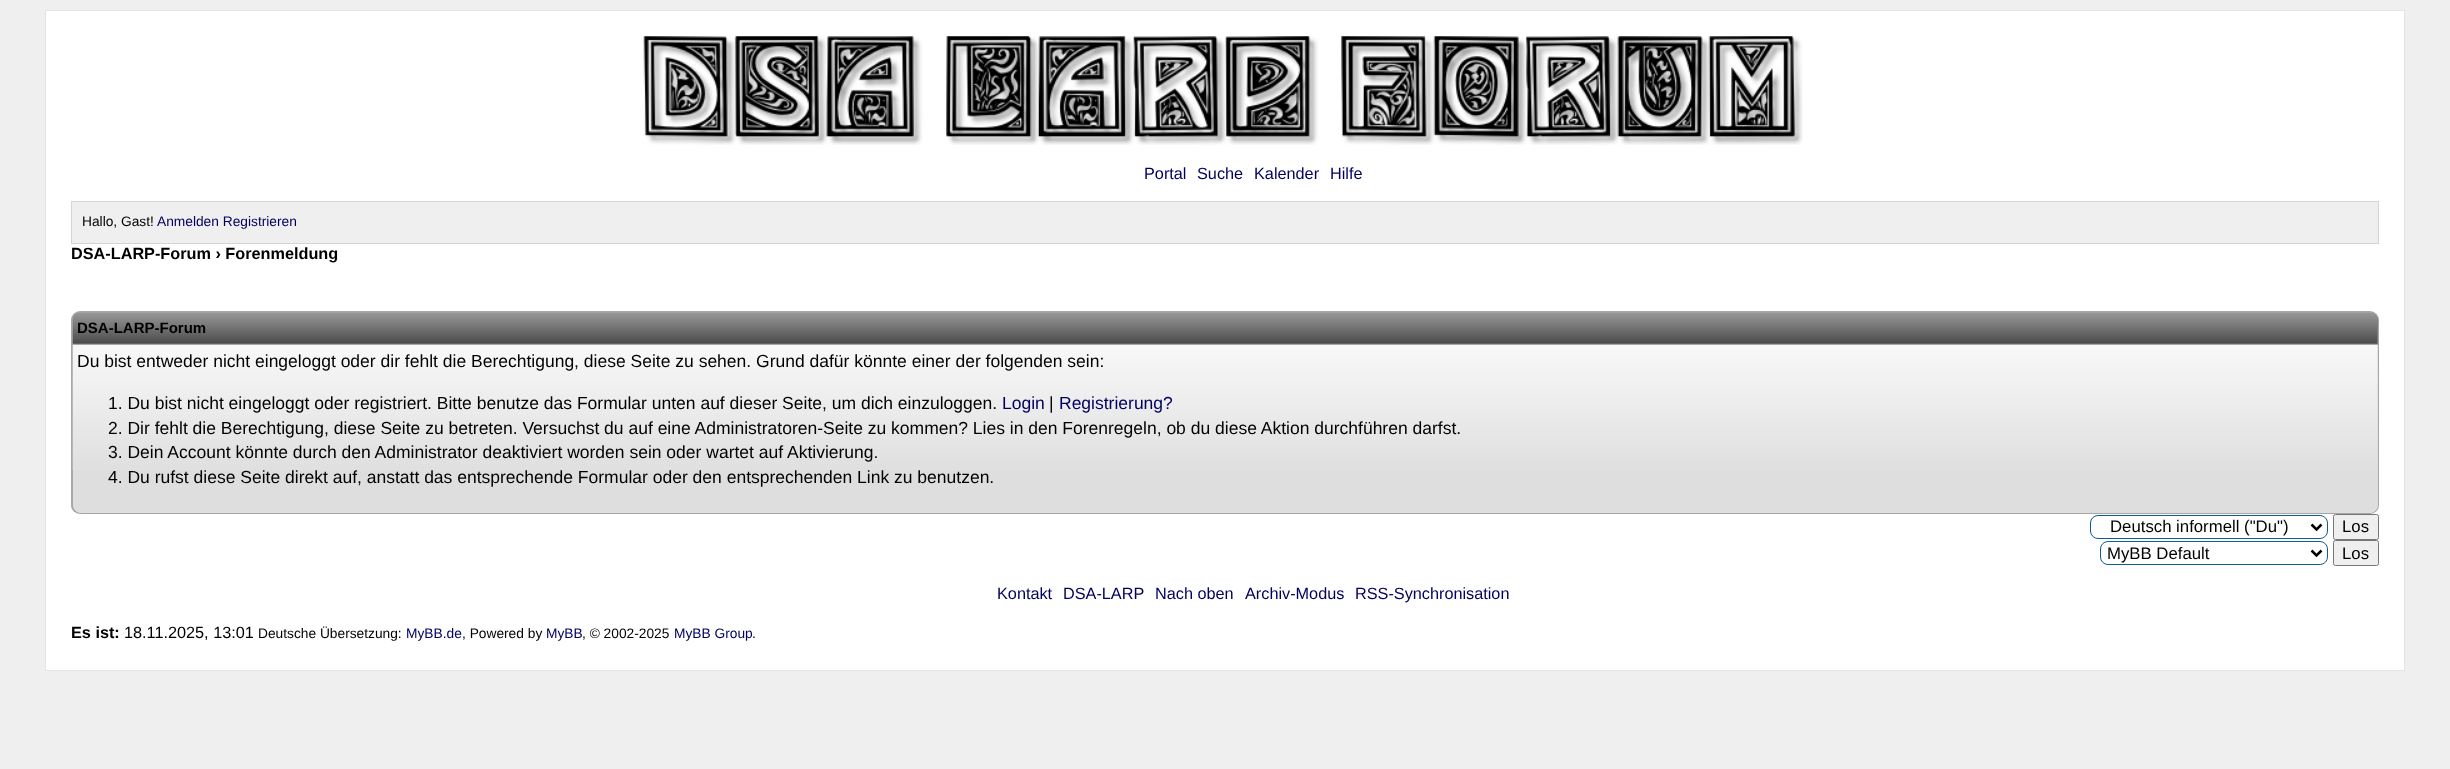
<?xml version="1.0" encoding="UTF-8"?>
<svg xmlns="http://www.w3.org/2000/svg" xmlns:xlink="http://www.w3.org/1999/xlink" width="2450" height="769">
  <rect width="100%" height="100%" fill="#efefef" />
  <rect x="45.5" y="10.5" width="2359" height="660" fill="#ffffff" stroke="#e4e4e4" />
  <image x="643" y="36" width="1160" height="109" xlink:href="image1.png" />
  <rect x="71.5" y="201.5" width="2307" height="42" fill="#efefef" stroke="#d4d4d4" />
  <rect x="71" y="311" width="2308" height="203" rx="9" fill="#a7a7a7" />
  <path d="M 81 313 h 2289 c 4.5 0 8 3.5 8 8 v 23 h -2305 v -23 c 0 -4.5 3.5 -8 8 -8 z" fill="#7f7f7f" />
  <image x="72" y="312" width="2306" height="32" xlink:href="image2.png" />
  <path d="M 73 345 h 2305 v 160 c 0 4.5 -3.5 8 -8 8 h -2289 c -4.5 0 -8 -3.5 -8 -8 z" fill="#dedede" />
  <image x="72" y="345" width="2306" height="125" xlink:href="image3.png" />
  <rect x="2090.5" y="515.5" width="237" height="23" rx="7.5" fill="none" stroke="#0f5c8e" />
  <path d="M 2311.5 524.5 l 5 5 l 5 -5" fill="none" stroke="#000000" stroke-width="2.5" />
  <rect x="2333.5" y="514.5" width="45" height="25" rx="2" fill="#efefef" stroke="#767676" />
  <rect x="2100.5" y="541.5" width="227" height="23" rx="7.5" fill="none" stroke="#0f5c8e" />
  <path d="M 2311.5 550.5 l 5 5 l 5 -5" fill="none" stroke="#000000" stroke-width="2.5" />
  <rect x="2333.5" y="540.5" width="45" height="25" rx="2" fill="#efefef" stroke="#767676" />
  <text x="1144" y="179" style="font-family: Liberation Sans; font-size: 16.25px; fill: #00005f">Portal</text>
  <text x="1197" y="179" style="font-family: Liberation Sans; font-size: 16.25px; fill: #00005f">Suche</text>
  <text x="1254" y="179" style="font-family: Liberation Sans; font-size: 16.25px; fill: #00005f">Kalender</text>
  <text x="1330" y="179" style="font-family: Liberation Sans; font-size: 16.25px; fill: #00005f">Hilfe</text>
  <text x="82" y="226" style="font-family: Liberation Sans; font-size: 13.75px; fill: #000000">Hallo, Gast!</text>
  <text x="157" y="226" style="font-family: Liberation Sans; font-size: 13.75px; fill: #00005f">Anmelden Registrieren</text>
  <text x="71" y="259" style="font-family: Liberation Sans; font-size: 16.25px; font-weight: bold; fill: #000000">DSA-LARP-Forum › Forenmeldung</text>
  <text x="77" y="333" style="font-family: Liberation Sans; font-size: 15px; font-weight: bold; fill: #000000">DSA-LARP-Forum</text>
  <text x="77" y="367" style="font-family: Liberation Sans; font-size: 17.5px; fill: #000000">Du bist entweder nicht eingeloggt oder dir fehlt die Berechtigung, diese Seite zu sehen. Grund dafür könnte einer der folgenden sein:</text>
  <text x="108" y="409" style="font-family: Liberation Sans; font-size: 17.5px; fill: #000000">1. Du bist nicht eingeloggt oder registriert. Bitte benutze das Formular unten auf dieser Seite, um dich einzuloggen.</text>
  <text x="1002" y="409" style="font-family: Liberation Sans; font-size: 17.5px; fill: #00005f">Login</text>
  <text x="1049" y="409" style="font-family: Liberation Sans; font-size: 17.5px; fill: #000000">|</text>
  <text x="1059" y="409" style="font-family: Liberation Sans; font-size: 17.5px; fill: #00005f">Registrierung?</text>
  <text x="108" y="434" style="font-family: Liberation Sans; font-size: 17.5px; fill: #000000">2. Dir fehlt die Berechtigung, diese Seite zu betreten. Versuchst du auf eine Administratoren-Seite zu kommen? Lies in den Forenregeln, ob du diese Aktion durchführen darfst.</text>
  <text x="108" y="458" style="font-family: Liberation Sans; font-size: 17.5px; fill: #000000">3. Dein Account könnte durch den Administrator deaktiviert worden sein oder wartet auf Aktivierung.</text>
  <text x="108" y="483" style="font-family: Liberation Sans; font-size: 17.5px; fill: #000000">4. Du rufst diese Seite direkt auf, anstatt das entsprechende Formular oder den entsprechenden Link zu benutzen.</text>
  <text x="2110" y="532" style="font-family: Liberation Sans; font-size: 16.75px; fill: #000000">Deutsch informell ("Du")</text>
  <text x="2342" y="532" style="font-family: Liberation Sans; font-size: 16.75px; fill: #000000">Los</text>
  <text x="2107" y="559" style="font-family: Liberation Sans; font-size: 16.75px; fill: #000000">MyBB Default</text>
  <text x="2342" y="559" style="font-family: Liberation Sans; font-size: 16.75px; fill: #000000">Los</text>
  <text x="997" y="599" style="font-family: Liberation Sans; font-size: 16.25px; fill: #00005f">Kontakt</text>
  <text x="1063" y="599" style="font-family: Liberation Sans; font-size: 16.25px; fill: #00005f">DSA-LARP</text>
  <text x="1155" y="599" style="font-family: Liberation Sans; font-size: 16.25px; fill: #00005f">Nach oben</text>
  <text x="1245" y="599" style="font-family: Liberation Sans; font-size: 16.25px; fill: #00005f">Archiv-Modus</text>
  <text x="1355" y="599" style="font-family: Liberation Sans; font-size: 16.25px; fill: #00005f">RSS-Synchronisation</text>
  <text x="71" y="638" style="font-family: Liberation Sans; font-size: 16.25px; font-weight: bold; fill: #000000">Es ist:</text>
  <text x="124" y="638" style="font-family: Liberation Sans; font-size: 16.25px; fill: #000000">18.11.2025, 13:01</text>
  <text x="258" y="638" style="font-family: Liberation Sans; font-size: 13.75px; fill: #000000">Deutsche Übersetzung:</text>
  <text x="406" y="638" style="font-family: Liberation Sans; font-size: 13.75px; fill: #00005f">MyBB.de</text>
  <text x="462" y="638" style="font-family: Liberation Sans; font-size: 13.75px; fill: #000000">, Powered by</text>
  <text x="546" y="638" style="font-family: Liberation Sans; font-size: 13.75px; fill: #00005f">MyBB</text>
  <text x="582" y="638" style="font-family: Liberation Sans; font-size: 13.75px; fill: #000000">, © 2002-2025</text>
  <text x="674" y="638" style="font-family: Liberation Sans; font-size: 13.75px; fill: #00005f">MyBB Group</text>
  <text x="752" y="638" style="font-family: Liberation Sans; font-size: 13.75px; fill: #000000">.</text>
</svg>
